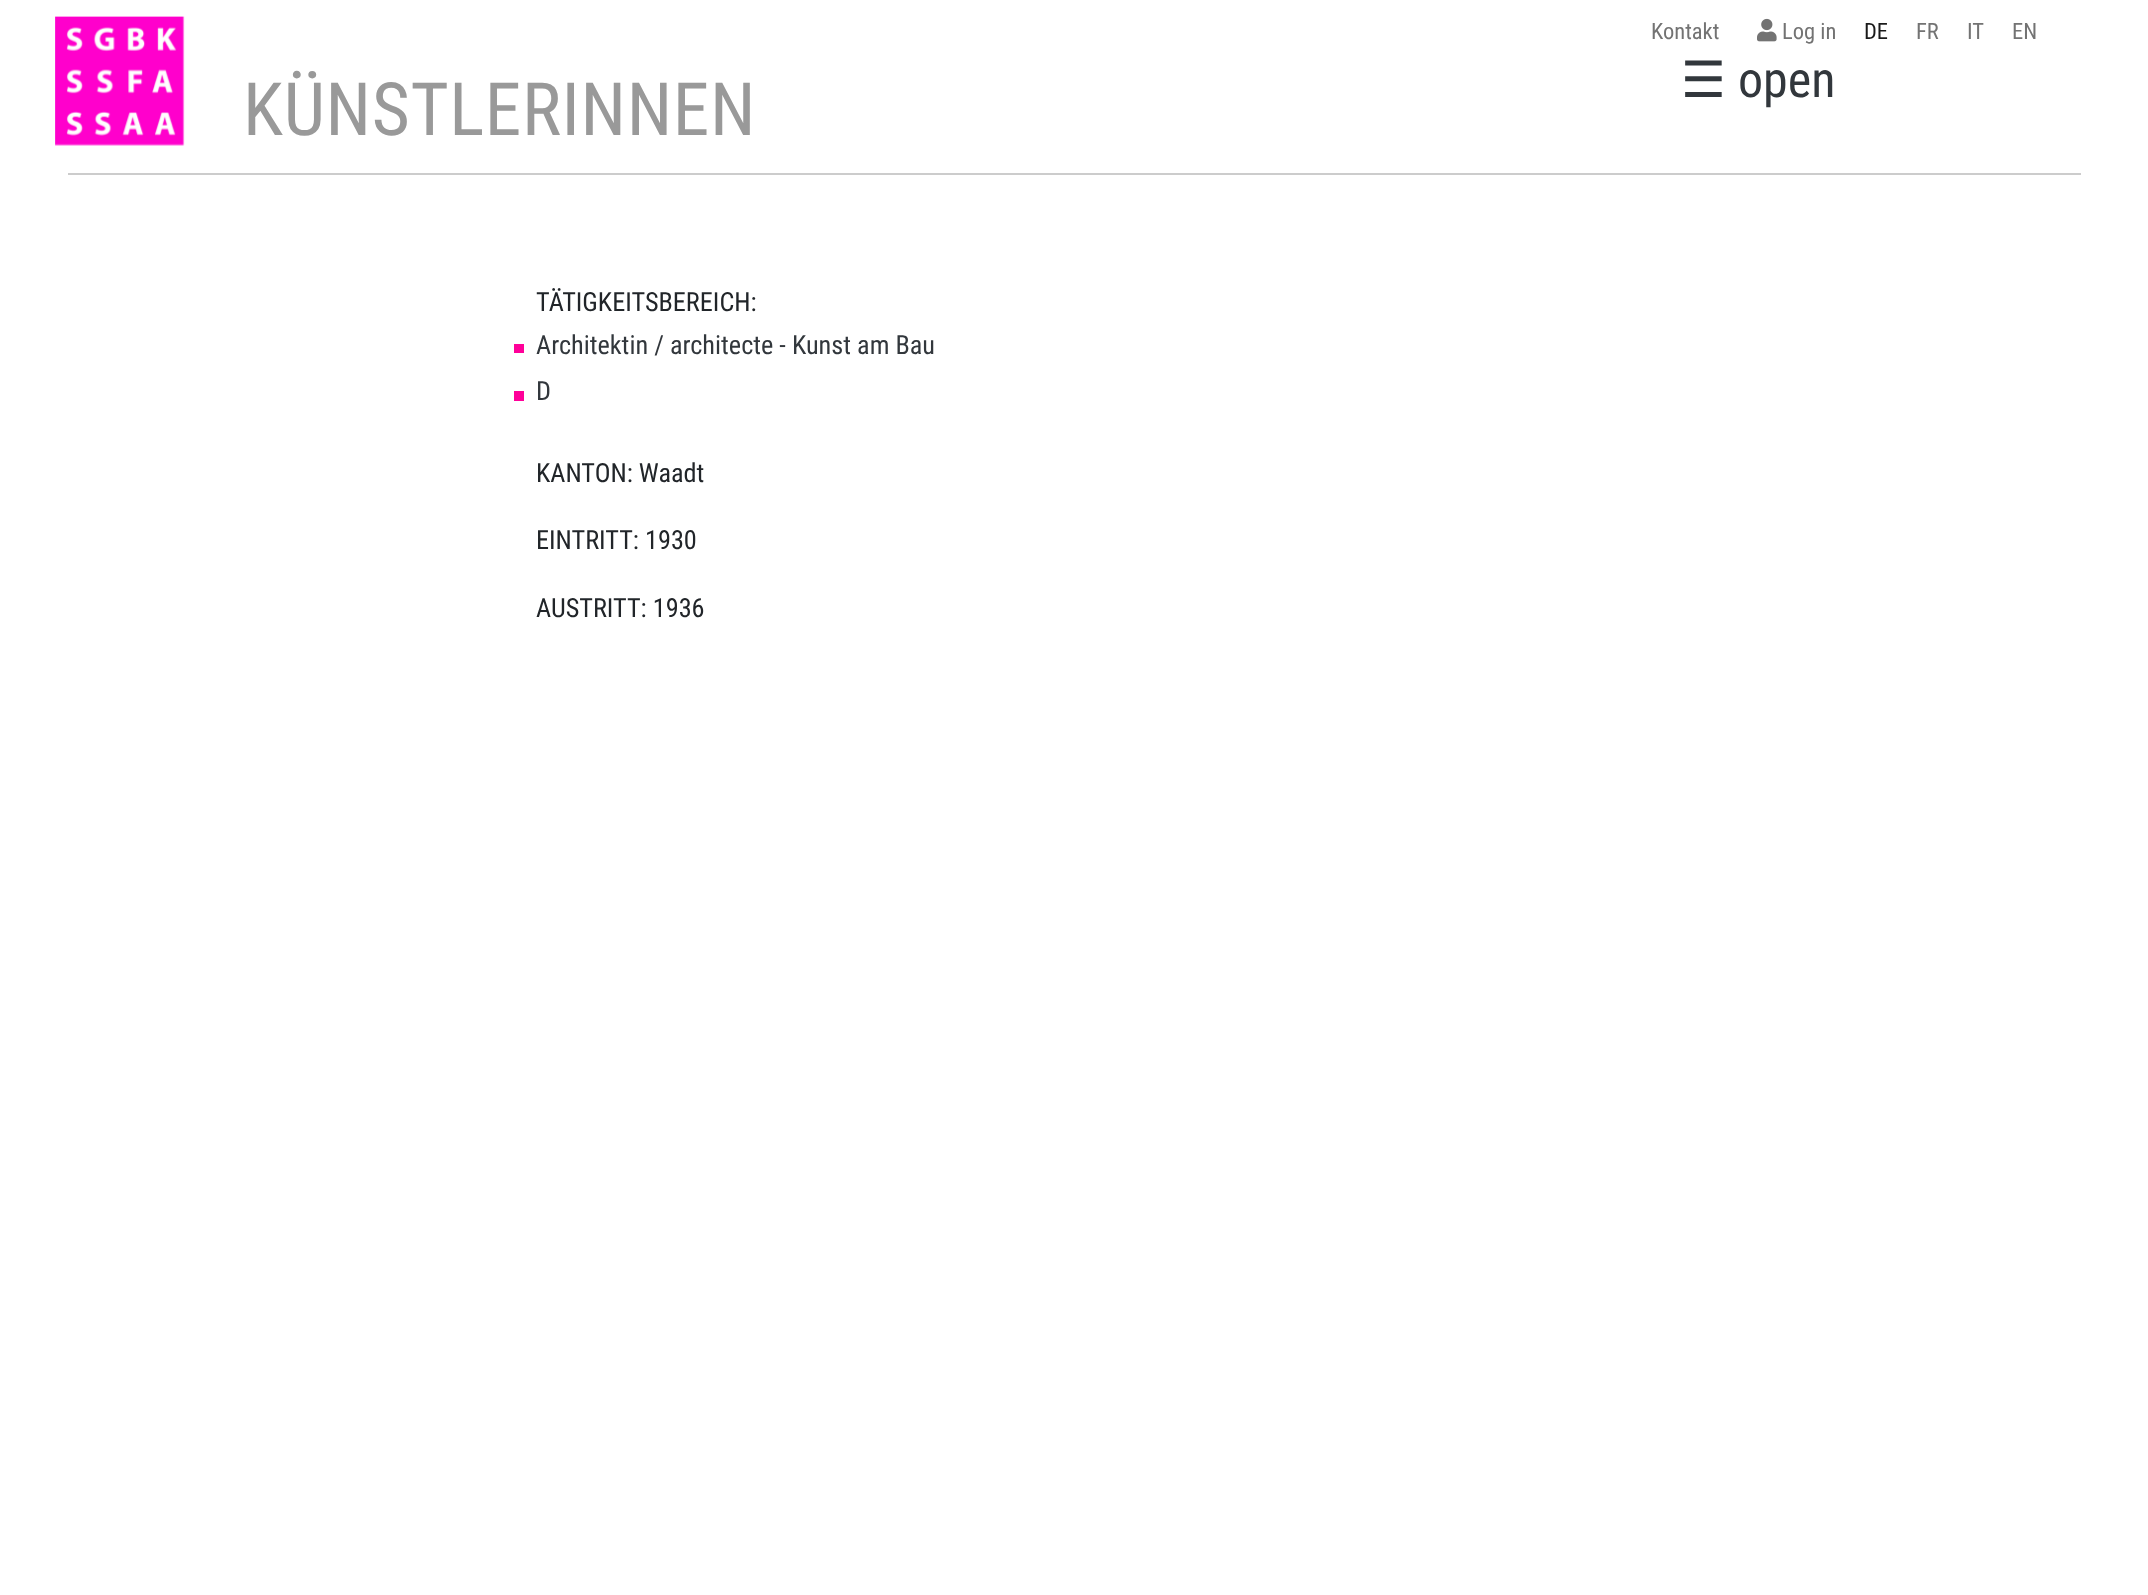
<?xml version="1.0" encoding="UTF-8"?>
<svg xmlns="http://www.w3.org/2000/svg" xmlns:xlink="http://www.w3.org/1999/xlink" width="2148" height="1595">
  <rect width="100%" height="100%" fill="#ffffff" />
  <image x="1757" y="18" width="20" height="24" xlink:href="image1.png" />
  <image x="55" y="16" width="130" height="130" xlink:href="image2.png" />
  <rect x="68" y="173" width="2013" height="2" fill="#cccccc" />
  <rect x="514" y="344" width="10" height="9" fill="#ff0099" />
  <rect x="514" y="391" width="10" height="10" fill="#ff0099" />
  <text x="1651" y="39" style="font-family: Roboto Condensed; font-size: 22.5px; fill: #737373">Kontakt</text>
  <text x="1782" y="39" style="font-family: Roboto Condensed; font-size: 22.5px; fill: #737373">Log in</text>
  <text x="1864" y="39" style="font-family: Roboto Condensed; font-size: 22.5px; fill: #1a1a1a">DE</text>
  <text x="1916" y="39" style="font-family: Roboto Condensed; font-size: 22.5px; fill: #737373">FR</text>
  <text x="1967" y="39" style="font-family: Roboto Condensed; font-size: 22.5px; fill: #737373">IT</text>
  <text x="2012" y="39" style="font-family: Roboto Condensed; font-size: 22.5px; fill: #737373">EN</text>
  <text x="243" y="135" style="font-family: Roboto Condensed; font-size: 73.5px; letter-spacing: 0.6px; fill: #999999">KÜNSTLERINNEN</text>
  <text x="1681" y="97" style="font-family: DejaVu Sans; font-size: 50px; fill: #32373c">☰</text>
  <text x="1738" y="97" style="font-family: Roboto Condensed; font-size: 50px; fill: #32373c">open</text>
  <text x="536" y="311" style="font-family: Roboto Condensed; font-size: 26.25px; fill: #212529">TÄTIGKEITSBEREICH:</text>
  <text x="536" y="354" style="font-family: Roboto Condensed; font-size: 26.25px; fill: #32373c">Architektin / architecte - Kunst am Bau</text>
  <text x="536" y="400" style="font-family: Roboto Condensed; font-size: 26.25px; fill: #32373c">D</text>
  <text x="536" y="482" style="font-family: Roboto Condensed; font-size: 26.25px; fill: #212529">KANTON: Waadt</text>
  <text x="536" y="549" style="font-family: Roboto Condensed; font-size: 26.25px; fill: #212529">EINTRITT: 1930</text>
  <text x="536" y="617" style="font-family: Roboto Condensed; font-size: 26.25px; fill: #212529">AUSTRITT: 1936</text>
</svg>
